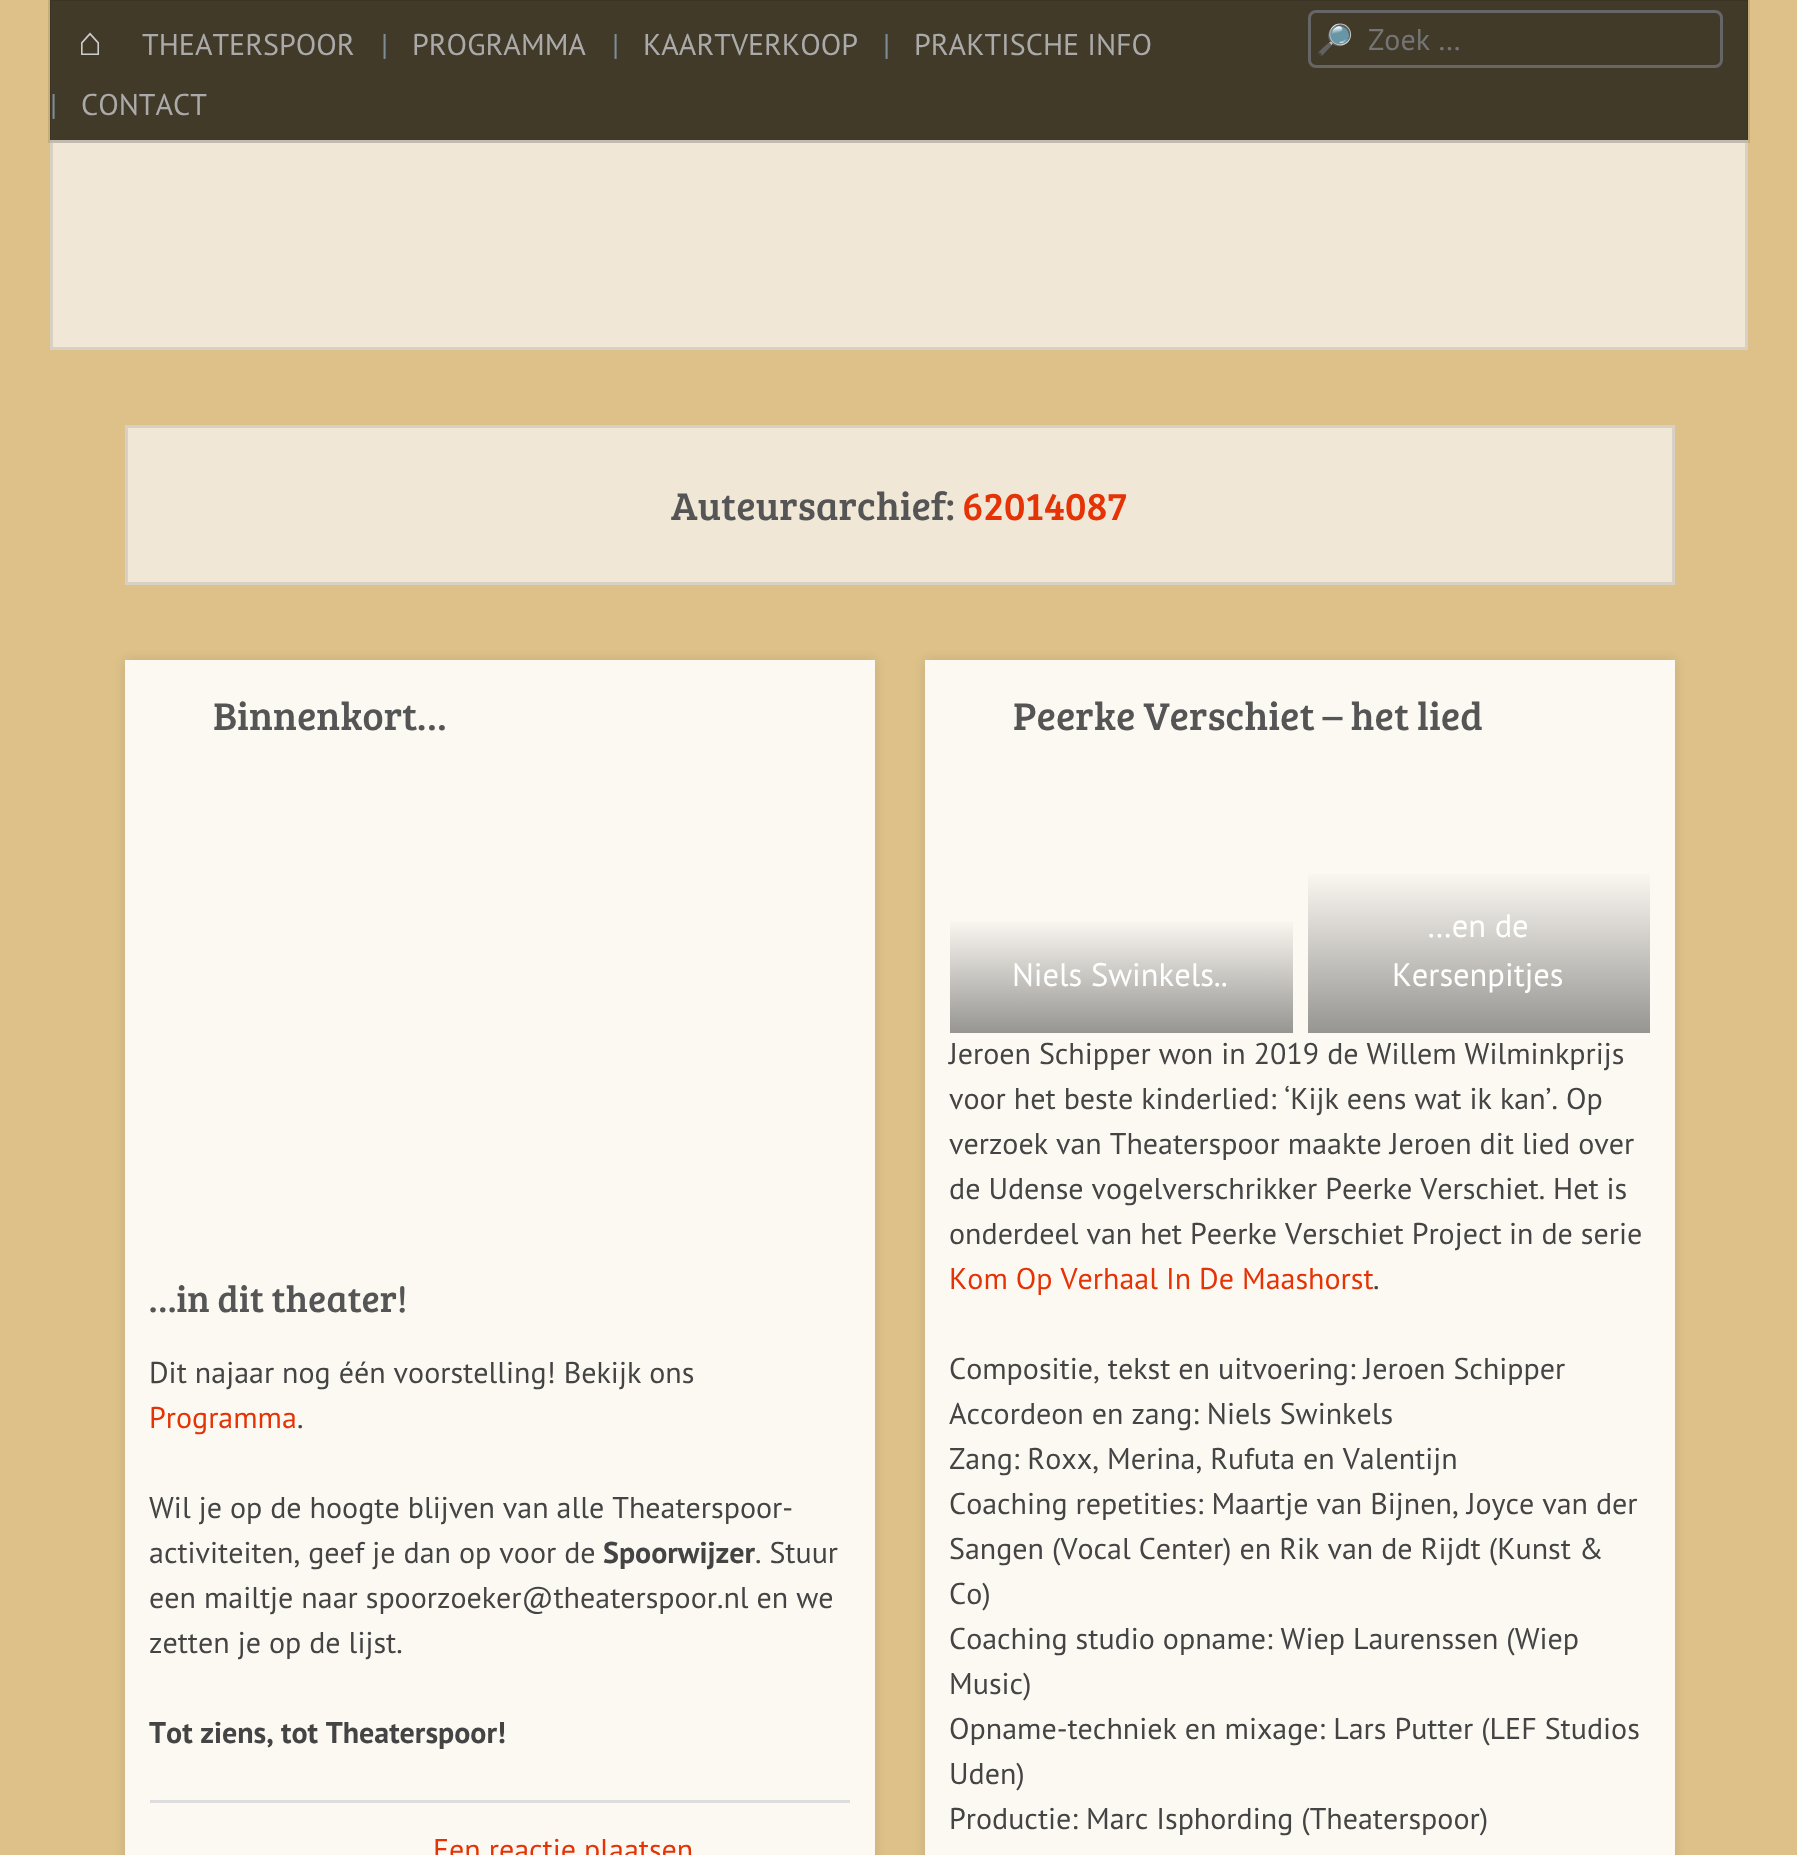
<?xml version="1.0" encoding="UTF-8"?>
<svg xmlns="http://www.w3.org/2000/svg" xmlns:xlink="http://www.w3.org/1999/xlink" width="1797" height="1855">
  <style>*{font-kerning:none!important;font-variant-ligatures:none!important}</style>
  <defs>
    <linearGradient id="g1" gradientUnits="userSpaceOnUse" x1="1121" y1="1033" x2="1121" y2="918"><stop offset="0" stop-color="#979592" /><stop offset="1" stop-color="#fcf9f3" /></linearGradient>
    <linearGradient id="g2" gradientUnits="userSpaceOnUse" x1="1479" y1="1033" x2="1479" y2="870"><stop offset="0" stop-color="#979592" /><stop offset="1" stop-color="#fcf9f3" /></linearGradient>
  </defs>
  <rect width="100%" height="100%" fill="#ddc189" />
  <rect x="51.5" y="141.5" width="1695" height="207" fill="#f0e7d7" stroke="#d8d0c2" stroke-width="3" />
  <rect x="49.5" y="-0.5" width="1699" height="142" fill="none" stroke="#000000" stroke-opacity="0.1" stroke-width="3" />
  <rect x="50" width="1698" height="140" fill="#000000" fill-opacity="0.7" />
  <rect x="1309.5" y="11.5" width="412" height="55" rx="6.5" fill="none" stroke="#666666" stroke-width="3" />
  <rect x="126.5" y="426.5" width="1547" height="157" fill="#f0e7d7" stroke="#d8d0c2" stroke-width="3" />
  <rect x="125" y="660" width="750" height="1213" fill="#000000" fill-opacity="0.1" filter="blur(6px)" />
  <rect x="125" y="660" width="750" height="1195" fill="#fcf9f3" />
  <rect x="150" y="1800" width="700" height="3" fill="#dddddd" />
  <rect x="925" y="660" width="750" height="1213" fill="#000000" fill-opacity="0.1" filter="blur(6px)" />
  <rect x="925" y="660" width="750" height="1195" fill="#fcf9f3" />
  <rect x="950" y="921" width="343" height="112" fill="url(#g1)" />
  <rect x="1308" y="874" width="342" height="159" fill="url(#g2)" />
  <text x="78" y="55" style="font-family: Liberation Serif; font-size: 40px; fill: #cccccc">⌂</text>
  <text x="142" y="55" style="font-family: PT Sans; font-size: 30px; fill: #aaaaaa">THEATERSPOOR</text>
  <text x="381" y="55" style="font-family: PT Sans; font-size: 30px; fill: #7c8d95">|</text>
  <text x="412" y="55" style="font-family: PT Sans; font-size: 30px; fill: #aaaaaa">PROGRAMMA</text>
  <text x="612" y="55" style="font-family: PT Sans; font-size: 30px; fill: #7c8d95">|</text>
  <text x="643" y="55" style="font-family: PT Sans; font-size: 30px; fill: #aaaaaa">KAARTVERKOOP</text>
  <text x="883" y="55" style="font-family: PT Sans; font-size: 30px; fill: #7c8d95">|</text>
  <text x="914" y="55" style="font-family: PT Sans; font-size: 30px; fill: #aaaaaa">PRAKTISCHE INFO</text>
  <text x="50" y="115" style="font-family: PT Sans; font-size: 30px; fill: #7c8d95">|</text>
  <text x="81" y="115" style="font-family: PT Sans; font-size: 30px; fill: #aaaaaa">CONTACT</text>
  <text x="1316" y="50" style="font-family: Noto Color Emoji; font-size: 30px; fill: #cccccc">🔎</text>
  <text x="1368" y="50" style="font-family: PT Sans; font-size: 30px; fill: #757575">Zoek …</text>
  <text x="671" y="520" style="font-family: Bree Serif; font-size: 40px; fill: #555555">Auteursarchief:</text>
  <text x="962" y="520" style="font-family: Bree Serif; font-size: 40px; fill: #e53306">62014087</text>
  <text x="213" y="730" style="font-family: Bree Serif; font-size: 40px; fill: #555555">Binnenkort…</text>
  <text x="149" y="1312" style="font-family: Bree Serif; font-size: 37.5px; fill: #555555">…in dit theater!</text>
  <text x="149" y="1383" style="font-family: PT Sans; font-size: 30px; fill: #444444">Dit najaar nog één voorstelling! Bekijk ons</text>
  <text x="149" y="1428" style="font-family: PT Sans; font-size: 30px; fill: #e53306">Programma</text>
  <text x="297" y="1428" style="font-family: PT Sans; font-size: 30px; fill: #444444">.</text>
  <text x="149" y="1518" style="font-family: PT Sans; font-size: 30px; fill: #444444">Wil je op de hoogte blijven van alle Theaterspoor-</text>
  <text x="149" y="1563" style="font-family: PT Sans; font-size: 30px; fill: #444444">activiteiten, geef je dan op voor de</text>
  <text x="603" y="1563" style="font-family: PT Sans; font-size: 30px; font-weight: bold; fill: #444444">Spoorwijzer</text>
  <text x="755" y="1563" style="font-family: PT Sans; font-size: 30px; fill: #444444">. Stuur</text>
  <text x="149" y="1608" style="font-family: PT Sans; font-size: 30px; fill: #444444">een mailtje naar spoorzoeker@theaterspoor.nl en we</text>
  <text x="149" y="1653" style="font-family: PT Sans; font-size: 30px; fill: #444444">zetten je op de lijst.</text>
  <text x="149" y="1743" style="font-family: PT Sans; font-size: 30px; font-weight: bold; fill: #444444">Tot ziens,</text>
  <text x="281" y="1743" style="font-family: PT Sans; font-size: 30px; font-weight: bold; fill: #444444">tot Theaterspoor!</text>
  <text x="433" y="1860" style="font-family: PT Sans; font-size: 30px; fill: #e53306">Een reactie plaatsen</text>
  <text x="1013" y="730" style="font-family: Bree Serif; font-size: 40px; fill: #555555">Peerke Verschiet – het lied</text>
  <text x="1012" y="986" style="font-family: PT Sans; font-size: 32.5px; fill: #ffffff">Niels Swinkels..</text>
  <text x="1427" y="937" style="font-family: PT Sans; font-size: 32.5px; fill: #ffffff">…en de</text>
  <text x="1392" y="986" style="font-family: PT Sans; font-size: 32.5px; fill: #ffffff">Kersenpitjes</text>
  <text x="949" y="1064" style="font-family: PT Sans; font-size: 30px; fill: #444444">Jeroen Schipper won in 2019 de Willem Wilminkprijs</text>
  <text x="949" y="1109" style="font-family: PT Sans; font-size: 30px; fill: #444444">voor het beste kinderlied: ‘Kijk eens wat ik kan’.</text>
  <text x="1566" y="1109" style="font-family: PT Sans; font-size: 30px; fill: #444444">Op</text>
  <text x="949" y="1154" style="font-family: PT Sans; font-size: 30px; fill: #444444">verzoek van Theaterspoor maakte Jeroen dit lied over</text>
  <text x="949" y="1199" style="font-family: PT Sans; font-size: 30px; fill: #444444">de Udense vogelverschrikker Peerke Verschiet.</text>
  <text x="1553" y="1199" style="font-family: PT Sans; font-size: 30px; fill: #444444">Het is</text>
  <text x="949" y="1244" style="font-family: PT Sans; font-size: 30px; fill: #444444">onderdeel van het Peerke Verschiet Project</text>
  <text x="1509" y="1244" style="font-family: PT Sans; font-size: 30px; fill: #444444">in de serie</text>
  <text x="949" y="1289" style="font-family: PT Sans; font-size: 30px; fill: #e53306">Kom Op Verhaal In De Maashorst</text>
  <text x="1373" y="1289" style="font-family: PT Sans; font-size: 30px; fill: #444444">.</text>
  <text x="949" y="1379" style="font-family: PT Sans; font-size: 30px; fill: #444444">Compositie, tekst en uitvoering: Jeroen Schipper</text>
  <text x="949" y="1424" style="font-family: PT Sans; font-size: 30px; fill: #444444">Accordeon en zang: Niels Swinkels</text>
  <text x="949" y="1469" style="font-family: PT Sans; font-size: 30px; fill: #444444">Zang: Roxx,</text>
  <text x="1107" y="1469" style="font-family: PT Sans; font-size: 30px; fill: #444444">Merina, Rufuta en Valentijn</text>
  <text x="949" y="1514" style="font-family: PT Sans; font-size: 30px; fill: #444444">Coaching repetities: Maartje van Bijnen, Joyce van der</text>
  <text x="949" y="1559" style="font-family: PT Sans; font-size: 30px; fill: #444444">Sangen (Vocal Center) en Rik van de Rijdt (Kunst &amp;</text>
  <text x="949" y="1604" style="font-family: PT Sans; font-size: 30px; fill: #444444">Co)</text>
  <text x="949" y="1649" style="font-family: PT Sans; font-size: 30px; fill: #444444">Coaching studio opname: Wiep Laurenssen (Wiep</text>
  <text x="949" y="1694" style="font-family: PT Sans; font-size: 30px; fill: #444444">Music)</text>
  <text x="949" y="1739" style="font-family: PT Sans; font-size: 30px; fill: #444444">Opname-techniek en mixage: Lars Putter (LEF Studios</text>
  <text x="949" y="1784" style="font-family: PT Sans; font-size: 30px; fill: #444444">Uden)</text>
  <text x="949" y="1829" style="font-family: PT Sans; font-size: 30px; fill: #444444">Productie: Marc Isphording (Theaterspoor)</text>
</svg>
